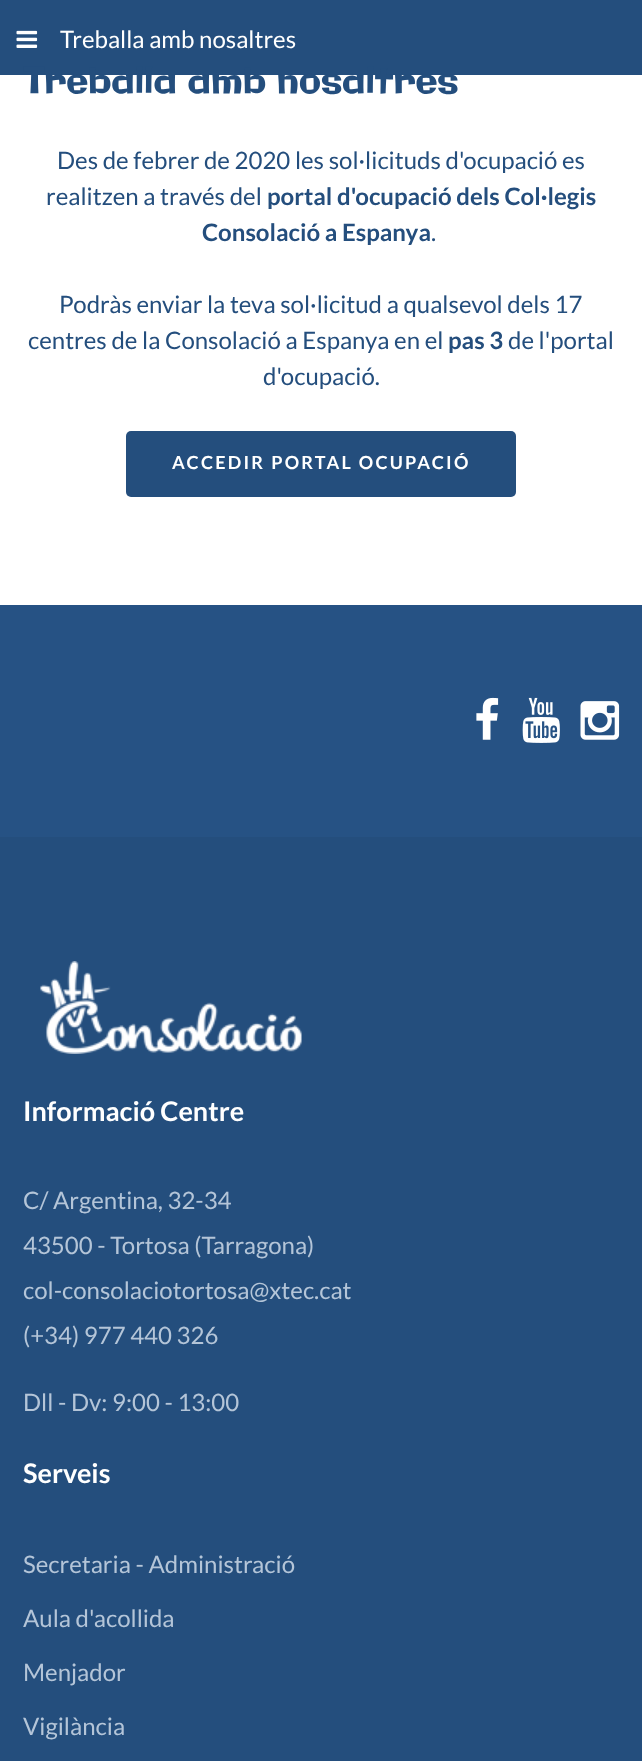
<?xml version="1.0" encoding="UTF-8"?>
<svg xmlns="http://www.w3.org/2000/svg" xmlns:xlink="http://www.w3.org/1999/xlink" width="642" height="1761">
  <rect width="100%" height="100%" fill="#ffffff" />
  <rect width="642" height="75" fill="#244e7d" />
  <image x="16" y="30" width="22" height="18" xlink:href="image1.png" />
  <rect x="126" y="431" width="390" height="66" rx="5" fill="#244e7d" />
  <rect y="837" width="642" height="924" fill="#244e7d" />
  <rect y="605" width="642" height="232" fill="#265284" />
  <image x="476" y="697" width="23" height="43" xlink:href="image2.png" />
  <image x="522" y="697" width="38" height="46" xlink:href="image3.png" />
  <image x="580" y="701" width="40" height="39" xlink:href="image4.png" />
  <image x="40" y="961" width="262" height="93" xlink:href="image5.png" />
  <text x="60" y="48" style="font-family: Lato; font-size: 24px; fill: #ffffff">Treballa amb nosaltres</text>
  <text x="23" y="93" style="font-family: Galindo; font-size: 36px; fill: #244e7d">Treballa amb nosaltres</text>
  <text x="57" y="169" style="font-family: Lato; font-size: 24px; fill: #244e7d">Des de febrer de 2020 les sol·licituds d'ocupació es</text>
  <text x="46" y="205" style="font-family: Lato; font-size: 24px; fill: #244e7d">realitzen a través del</text>
  <text x="267" y="205" style="font-family: Lato; font-size: 24px; font-weight: bold; fill: #244e7d">portal d'ocupació dels Col·legis</text>
  <text x="202" y="241" style="font-family: Lato; font-size: 24px; font-weight: bold; fill: #244e7d">Consolació a Espanya</text>
  <text x="431" y="241" style="font-family: Lato; font-size: 24px; fill: #244e7d">.</text>
  <text x="59" y="313" style="font-family: Lato; font-size: 24px; fill: #244e7d">Podràs enviar la teva sol·licitud a qualsevol dels 17</text>
  <text x="28" y="349" style="font-family: Lato; font-size: 24px; fill: #244e7d">centres de la Consolació a Espanya en el</text>
  <text x="448" y="349" style="font-family: Lato; font-size: 24px; font-weight: bold; fill: #244e7d">pas 3</text>
  <text x="508" y="349" style="font-family: Lato; font-size: 24px; fill: #244e7d">de l'portal</text>
  <text x="263" y="385" style="font-family: Lato; font-size: 24px; fill: #244e7d">d'ocupació.</text>
  <text x="172" y="469" style="font-family: Lato; font-size: 18px; font-weight: bold; letter-spacing: 2.25px; fill: #ffffff">ACCEDIR PORTAL OCUPACIÓ</text>
  <text x="23" y="1121" style="font-family: Lato; font-size: 27px; font-weight: bold; fill: #ffffff">Informació Centre</text>
  <text x="23" y="1209" style="font-family: Lato; font-size: 24px; fill: #b4c5d8">C/ Argentina, 32-34</text>
  <text x="23" y="1254" style="font-family: Lato; font-size: 24px; fill: #b4c5d8">43500 - Tortosa (Tarragona)</text>
  <text x="23" y="1299" style="font-family: Lato; font-size: 24px; fill: #b4c5d8">col-consolaciotortosa@xtec.cat</text>
  <text x="23" y="1344" style="font-family: Lato; font-size: 24px; fill: #b4c5d8">(+34) 977 440 326</text>
  <text x="23" y="1411" style="font-family: Lato; font-size: 24px; fill: #b4c5d8">Dll - Dv: 9:00 - 13:00</text>
  <text x="23" y="1483" style="font-family: Lato; font-size: 27px; font-weight: bold; fill: #ffffff">Serveis</text>
  <text x="23" y="1573" style="font-family: Lato; font-size: 24px; fill: #b4c5d8">Secretaria - Administració</text>
  <text x="23" y="1627" style="font-family: Lato; font-size: 24px; fill: #b4c5d8">Aula d'acollida</text>
  <text x="23" y="1681" style="font-family: Lato; font-size: 24px; fill: #b4c5d8">Menjador</text>
  <text x="23" y="1735" style="font-family: Lato; font-size: 24px; fill: #b4c5d8">Vigilància</text>
</svg>
